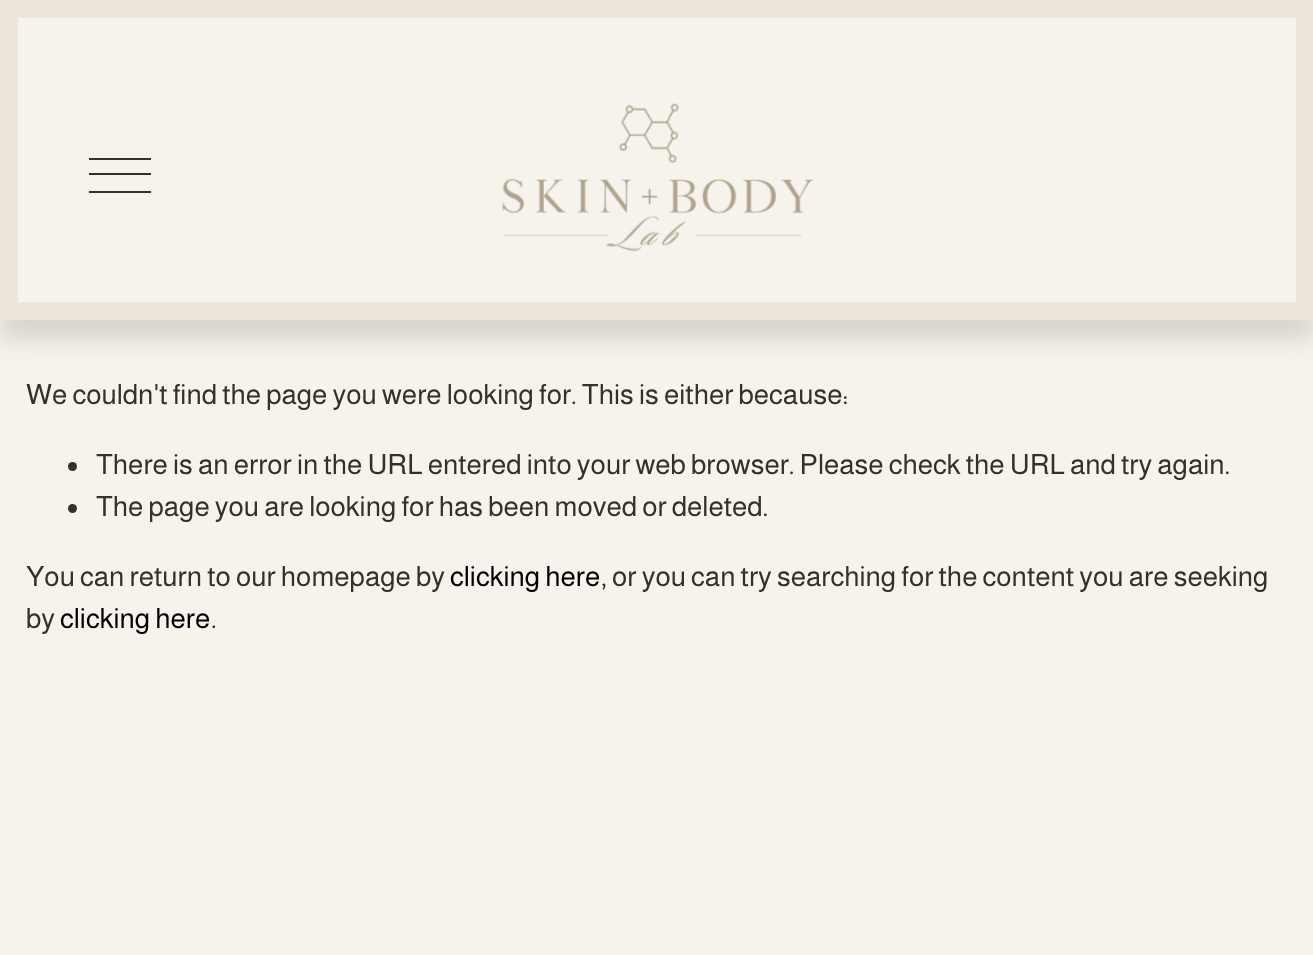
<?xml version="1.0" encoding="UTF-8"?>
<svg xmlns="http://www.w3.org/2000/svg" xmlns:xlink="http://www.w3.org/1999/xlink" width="1313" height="955">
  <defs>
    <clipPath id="clip1"><rect x="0" y="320" width="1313" height="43" /></clipPath>
  </defs>
  <rect width="100%" height="100%" fill="#f6f3ec" />
  <g clip-path="url(#clip1)">
    <rect y="21" width="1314" height="320" fill="#d9d6cf" filter="blur(10.5px)" />
  </g>
  <rect x="9" y="9" width="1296" height="302" fill="none" stroke="#ede6dd" stroke-width="18" />
  <rect x="89" y="158" width="62" height="2" fill="#36302a" />
  <rect x="89" y="173" width="62" height="2" fill="#36302a" />
  <rect x="89" y="191" width="62" height="2" fill="#36302a" />
  <image x="501" y="103" width="312" height="149" xlink:href="image1.png" />
  <circle cx="72.5" cy="466.5" r="4.5" fill="#36302a" />
  <circle cx="72.5" cy="508.5" r="4.5" fill="#36302a" />
  <text x="26" y="404" style="font-family: Almarai; font-size: 28px; fill: #36302a">We couldn't find the page you were looking for. This is either because:</text>
  <text x="96" y="474" style="font-family: Almarai; font-size: 28px; fill: #36302a">There is an error in the URL entered into your web browser. Please check the URL and try again.</text>
  <text x="96" y="516" style="font-family: Almarai; font-size: 28px; fill: #36302a">The page you are looking for has been moved or deleted.</text>
  <text x="26" y="586" style="font-family: Almarai; font-size: 28px; fill: #36302a">You can return to our homepage by</text>
  <text x="450" y="586" style="font-family: Almarai; font-size: 28px; fill: #000000">clicking here</text>
  <text x="601" y="586" style="font-family: Almarai; font-size: 28px; fill: #36302a">, or you can try searching for the content you are seeking</text>
  <text x="26" y="628" style="font-family: Almarai; font-size: 28px; fill: #36302a">by</text>
  <text x="60" y="628" style="font-family: Almarai; font-size: 28px; fill: #000000">clicking here</text>
  <text x="211" y="628" style="font-family: Almarai; font-size: 28px; fill: #36302a">.</text>
</svg>
